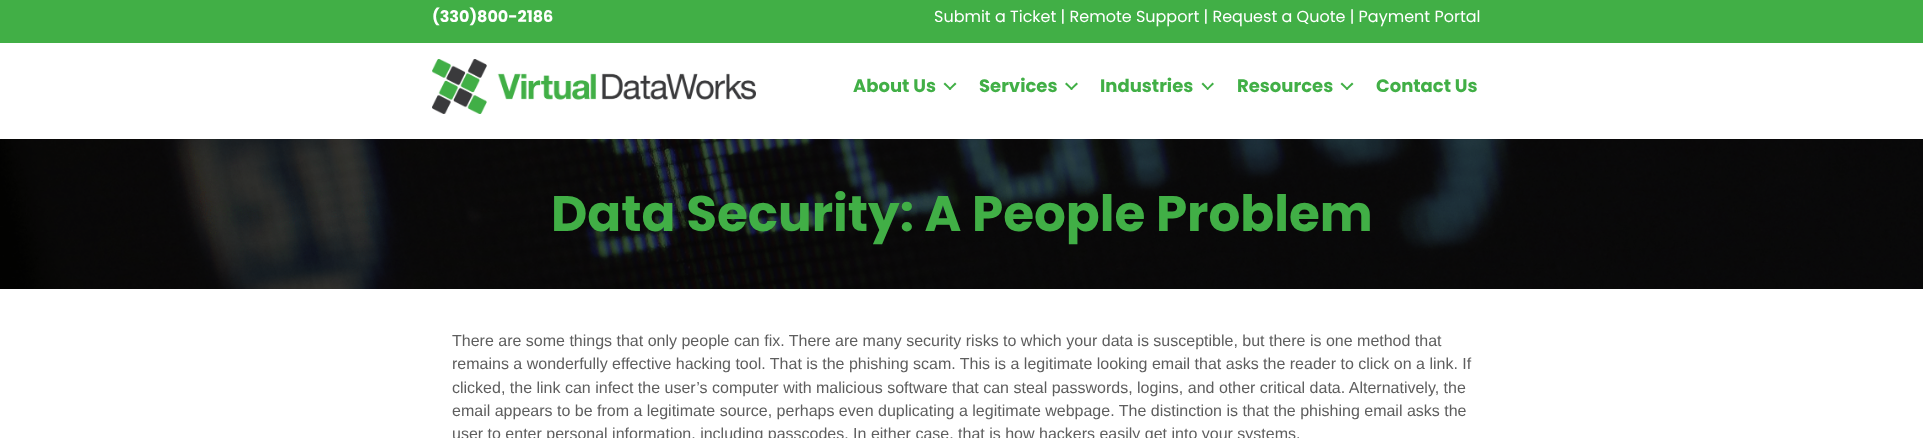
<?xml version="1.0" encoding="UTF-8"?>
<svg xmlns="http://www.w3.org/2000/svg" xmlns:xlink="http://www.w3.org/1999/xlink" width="1923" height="438">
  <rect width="100%" height="100%" fill="#ffffff" />
  <rect width="1923" height="43" fill="#41af46" />
  <image x="432" y="59" width="324" height="55" xlink:href="image1.png" />
  <path d="M 955 82.5 l 1.5 1.5 l -6.5 6 l -1.5 -1 z" fill="#41af46" />
  <path d="M 945 82.5 l 6.5 6.5 l -1.5 1 l -6.5 -6 z" fill="#41af46" />
  <path d="M 1076.5 82.5 l 1.5 1.5 l -6.5 6 l -1.5 -1 z" fill="#41af46" />
  <path d="M 1066.5 82.5 l 6.5 6.5 l -1.5 1 l -6.5 -6 z" fill="#41af46" />
  <path d="M 1212.5 82.5 l 1.5 1.5 l -6.5 6 l -1 -1 z" fill="#41af46" />
  <path d="M 1203 82.5 l 6 6.5 l -1.5 1 l -6 -6 z" fill="#41af46" />
  <path d="M 1352 82.5 l 1.5 1.5 l -6.5 6 l -1.5 -1 z" fill="#41af46" />
  <path d="M 1342 82.5 l 6.5 6.5 l -1.5 1 l -6.5 -6 z" fill="#41af46" />
  <image x="0" y="139" width="1923" height="150" xlink:href="image2.png" />
  <text x="432" y="22" style="font-family: Poppins; font-size: 16px; font-weight: bold; fill: #ffffff">(330)800-2186</text>
  <text x="934" y="22" style="font-family: Poppins; font-size: 16px; fill: #ffffff">Submit a Ticket | Remote Support | Request a Quote | Payment Portal</text>
  <text x="853" y="92" style="font-family: Poppins; font-size: 18px; font-weight: bold; fill: #41af46">About Us</text>
  <text x="979" y="92" style="font-family: Poppins; font-size: 18px; font-weight: bold; fill: #41af46">Services</text>
  <text x="1100" y="92" style="font-family: Poppins; font-size: 18px; font-weight: bold; fill: #41af46">Industries</text>
  <text x="1237" y="92" style="font-family: Poppins; font-size: 18px; font-weight: bold; fill: #41af46">Resources</text>
  <text x="1376" y="92" style="font-family: Poppins; font-size: 18px; font-weight: bold; fill: #41af46">Contact Us</text>
  <text x="551" y="231" style="font-family: Poppins; font-size: 50px; font-weight: bold; fill: #41af46">Data Security: A People Problem</text>
  <text x="452" y="346" style="font-family: Liberation Sans; font-size: 16px; fill: #5e5e5e">There are some things that only people can fix. There are many security risks to which your data is susceptible, but there is one method that</text>
  <text x="452" y="369" style="font-family: Liberation Sans; font-size: 16px; fill: #5e5e5e">remains a wonderfully effective hacking tool. That is the phishing scam. This is a legitimate looking email that asks the reader to click on a link. If</text>
  <text x="452" y="393" style="font-family: Liberation Sans; font-size: 16px; fill: #5e5e5e">clicked, the link can infect the user’s computer with malicious software that can steal passwords, logins, and other critical data. Alternatively, the</text>
  <text x="452" y="416" style="font-family: Liberation Sans; font-size: 16px; fill: #5e5e5e">email appears to be from a legitimate source, perhaps even duplicating a legitimate webpage. The distinction is that the phishing email asks the</text>
  <text x="452" y="439" style="font-family: Liberation Sans; font-size: 16px; fill: #5e5e5e">user to enter personal information, including passcodes. In either case, that is how hackers easily get into your systems.</text>
</svg>
